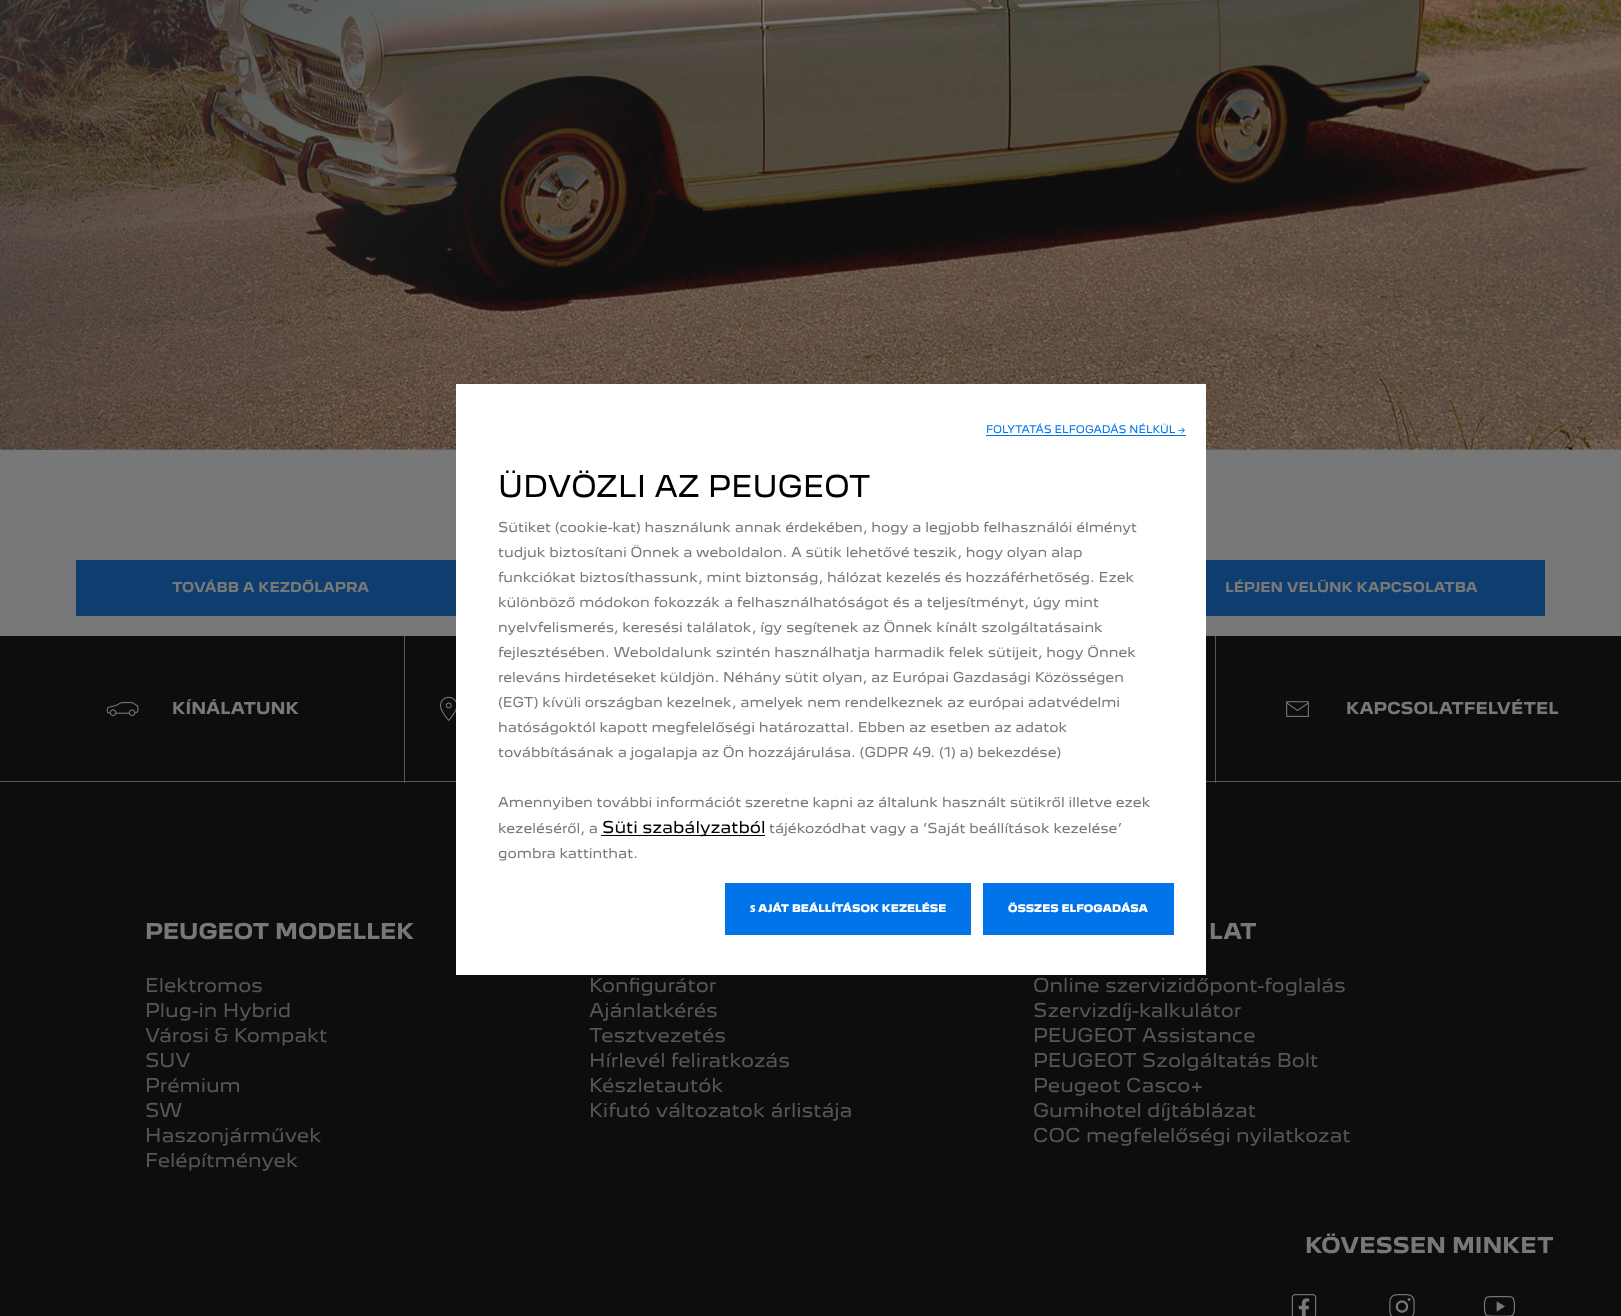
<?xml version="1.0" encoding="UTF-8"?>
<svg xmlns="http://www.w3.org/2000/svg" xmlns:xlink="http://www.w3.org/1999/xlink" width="1621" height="1316">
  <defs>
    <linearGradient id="g1" gradientUnits="userSpaceOnUse" x1="177" y1="-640" x2="1444" y2="627"><stop offset="0" stop-color="#3a3a3a" /><stop offset="0.5" stop-color="#3a3a3a" stop-opacity="0" /></linearGradient>
  </defs>
  <rect width="100%" height="100%" fill="#787878" />
  <image x="0" y="0" width="1621" height="450" xlink:href="image1.png" />
  <rect width="751" height="450" fill="url(#g1)" />
  <rect y="636" width="1621" height="680" fill="#0d0d0d" />
  <rect x="456" y="384" width="750" height="591" fill="#ffffff" />
  <rect x="986" y="435" width="200" height="1" fill="#0074e8" />
  <rect x="601" y="835" width="164" height="1" fill="#000000" />
  <rect x="725" y="883" width="246" height="52" fill="#0074e8" />
  <rect x="983" y="883" width="191" height="52" fill="#0074e8" />
  <rect x="76" y="560" width="380" height="56" fill="#0d3e6f" />
  <rect x="1206" y="560" width="339" height="56" fill="#0d3e6f" />
  <rect x="404" y="636" width="1" height="147" fill="#565658" />
  <rect y="781" width="456" height="1" fill="#565658" />
  <image x="106" y="702" width="33" height="14" xlink:href="image2.png" />
  <image x="440" y="696" width="16" height="25" xlink:href="image3.png" />
  <rect x="1215" y="636" width="1" height="147" fill="#565658" />
  <rect x="1206" y="781" width="415" height="1" fill="#565658" />
  <image x="1286" y="701" width="23" height="16" xlink:href="image4.png" />
  <image x="1291" y="1294" width="26" height="22" xlink:href="image5.png" />
  <image x="1389" y="1294" width="26" height="22" xlink:href="image6.png" />
  <image x="1483" y="1296" width="33" height="20" xlink:href="image7.png" />
  <text x="986" y="433" style="font-family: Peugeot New; font-size: 9.6px; fill: #0074e8">FOLYTATÁS ELFOGADÁS NÉLKÜL →</text>
  <text x="498" y="497" style="font-family: Peugeot New; font-size: 27.5px; fill: #000000">ÜDVÖZLI AZ PEUGEOT</text>
  <text x="498" y="532" style="font-family: Peugeot New; font-size: 12.5px; fill: #787b80">Sütiket (cookie-kat) használunk annak érdekében, hogy a legjobb felhasználói élményt</text>
  <text x="498" y="557" style="font-family: Peugeot New; font-size: 12.5px; fill: #787b80">tudjuk biztosítani Önnek a weboldalon. A sütik lehetővé teszik, hogy olyan alap</text>
  <text x="498" y="582" style="font-family: Peugeot New; font-size: 12.5px; fill: #787b80">funkciókat biztosíthassunk, mint biztonság, hálózat kezelés és hozzáférhetőség. Ezek</text>
  <text x="498" y="607" style="font-family: Peugeot New; font-size: 12.5px; fill: #787b80">különböző módokon fokozzák a felhasználhatóságot és a teljesítményt, úgy mint</text>
  <text x="498" y="632" style="font-family: Peugeot New; font-size: 12.5px; fill: #787b80">nyelvfelismerés, keresési találatok, így segítenek az Önnek kínált szolgáltatásaink</text>
  <text x="498" y="657" style="font-family: Peugeot New; font-size: 12.5px; fill: #787b80">fejlesztésében. Weboldalunk szintén használhatja harmadik felek sütijeit, hogy Önnek</text>
  <text x="498" y="682" style="font-family: Peugeot New; font-size: 12.5px; fill: #787b80">releváns hirdetéseket küldjön. Néhány sütit olyan, az Európai Gazdasági Közösségen</text>
  <text x="498" y="707" style="font-family: Peugeot New; font-size: 12.5px; fill: #787b80">(EGT) kívüli országban kezelnek, amelyek nem rendelkeznek az európai adatvédelmi</text>
  <text x="498" y="732" style="font-family: Peugeot New; font-size: 12.5px; fill: #787b80">hatóságoktól kapott megfelelőségi határozattal. Ebben az esetben az adatok</text>
  <text x="498" y="757" style="font-family: Peugeot New; font-size: 12.5px; fill: #787b80">továbbításának a jogalapja az Ön hozzájárulása. (GDPR 49. (1) a) bekezdése)</text>
  <text x="498" y="807" style="font-family: Peugeot New; font-size: 12.5px; fill: #787b80">Amennyiben további információt szeretne kapni az általunk használt sütikről illetve ezek</text>
  <text x="498" y="833" style="font-family: Peugeot New; font-size: 12.5px; fill: #787b80">kezeléséről, a</text>
  <text x="602" y="833" style="font-family: Peugeot New; font-size: 15px; fill: #000000">Süti szabályzatból</text>
  <text x="769" y="833" style="font-family: Peugeot New; font-size: 12.5px; fill: #787b80">tájékozódhat vagy a ’Saját beállítások kezelése’</text>
  <text x="498" y="858" style="font-family: Peugeot New; font-size: 12.5px; fill: #787b80">gombra kattinthat.</text>
  <text x="750" y="912" style="font-family: Noto Sans; font-size: 9.6px; font-weight: 900; fill: #ffffff">S</text>
  <text x="758" y="912" style="font-family: Peugeot New; font-size: 9.6px; font-weight: 900; fill: #ffffff">AJÁT BEÁLLÍTÁSOK KEZELÉSE</text>
  <text x="1008" y="912" style="font-family: Peugeot New; font-size: 9.6px; font-weight: 900; fill: #ffffff">ÖSSZES ELFOGADÁSA</text>
  <text x="172" y="592" style="font-family: Peugeot New; font-size: 12.5px; font-weight: bold; fill: #787878">TOVÁBB A KEZDŐLAPRA</text>
  <text x="1225" y="592" style="font-family: Peugeot New; font-size: 12.5px; font-weight: bold; fill: #787878">LÉPJEN VELÜNK KAPCSOLATBA</text>
  <text x="172" y="714" style="font-family: Peugeot New; font-size: 15px; font-weight: bold; fill: #787878">KÍNÁLATUNK</text>
  <text x="1346" y="714" style="font-family: Peugeot New; font-size: 15px; font-weight: bold; fill: #787878">KAPCSOLATFELVÉTEL</text>
  <text x="145" y="939" style="font-family: Peugeot New; font-size: 20px; font-weight: bold; fill: #787878">PEUGEOT MODELLEK</text>
  <text x="145" y="992" style="font-family: Peugeot New; font-size: 17.5px; fill: #565658">Elektromos</text>
  <text x="145" y="1017" style="font-family: Peugeot New; font-size: 17.5px; fill: #565658">Plug-in Hybrid</text>
  <text x="145" y="1042" style="font-family: Peugeot New; font-size: 17.5px; fill: #565658">Városi &amp; Kompakt</text>
  <text x="145" y="1067" style="font-family: Peugeot New; font-size: 17.5px; fill: #565658">SUV</text>
  <text x="145" y="1092" style="font-family: Peugeot New; font-size: 17.5px; fill: #565658">Prémium</text>
  <text x="145" y="1117" style="font-family: Peugeot New; font-size: 17.5px; fill: #565658">SW</text>
  <text x="145" y="1142" style="font-family: Peugeot New; font-size: 17.5px; fill: #565658">Haszonjárművek</text>
  <text x="145" y="1167" style="font-family: Peugeot New; font-size: 17.5px; fill: #565658">Felépítmények</text>
  <text x="589" y="992" style="font-family: Peugeot New; font-size: 17.5px; fill: #565658">Konfigurátor</text>
  <text x="589" y="1017" style="font-family: Peugeot New; font-size: 17.5px; fill: #565658">Ajánlatkérés</text>
  <text x="589" y="1042" style="font-family: Peugeot New; font-size: 17.5px; fill: #565658">Tesztvezetés</text>
  <text x="589" y="1067" style="font-family: Peugeot New; font-size: 17.5px; fill: #565658">Hírlevél feliratkozás</text>
  <text x="589" y="1092" style="font-family: Peugeot New; font-size: 17.5px; fill: #565658">Készletautók</text>
  <text x="589" y="1117" style="font-family: Peugeot New; font-size: 17.5px; fill: #565658">Kifutó változatok árlistája</text>
  <text x="1209" y="939" style="font-family: Peugeot New; font-size: 20px; font-weight: bold; fill: #787878">LAT</text>
  <text x="1033" y="992" style="font-family: Peugeot New; font-size: 17.5px; fill: #565658">Online szervizidőpont-foglalás</text>
  <text x="1033" y="1017" style="font-family: Peugeot New; font-size: 17.5px; fill: #565658">Szervizdíj-kalkulátor</text>
  <text x="1033" y="1042" style="font-family: Peugeot New; font-size: 17.5px; fill: #565658">PEUGEOT Assistance</text>
  <text x="1033" y="1067" style="font-family: Peugeot New; font-size: 17.5px; fill: #565658">PEUGEOT Szolgáltatás Bolt</text>
  <text x="1033" y="1092" style="font-family: Peugeot New; font-size: 17.5px; fill: #565658">Peugeot Casco+</text>
  <text x="1033" y="1117" style="font-family: Peugeot New; font-size: 17.5px; fill: #565658">Gumihotel díjtáblázat</text>
  <text x="1033" y="1142" style="font-family: Peugeot New; font-size: 17.5px; fill: #565658">COC megfelelőségi nyilatkozat</text>
  <text x="1305" y="1253" style="font-family: Peugeot New; font-size: 20px; font-weight: bold; fill: #787878">KÖVESSEN MINKET</text>
</svg>
